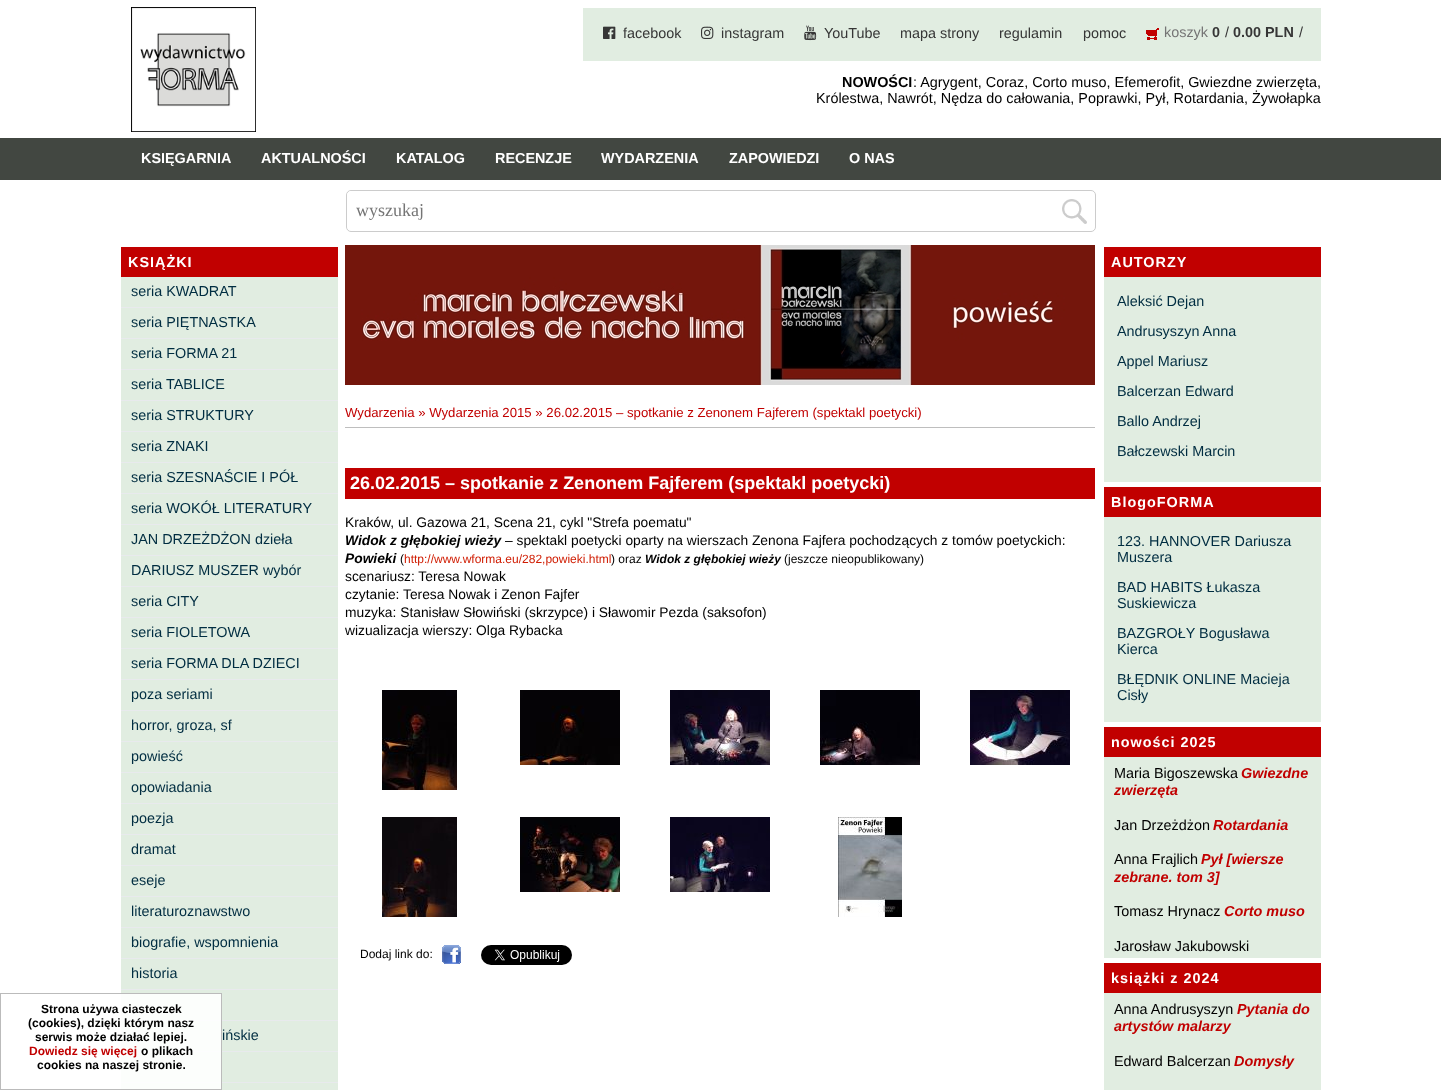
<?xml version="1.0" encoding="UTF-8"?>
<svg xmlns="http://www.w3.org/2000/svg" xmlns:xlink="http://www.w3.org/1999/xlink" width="1441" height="1090">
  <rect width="100%" height="100%" fill="#ffffff" />
  <image x="131" y="7" width="125" height="125" xlink:href="image1.png" />
  <rect x="583" y="8" width="738" height="53" fill="#e1ede1" />
  <image x="603" y="26" width="13" height="13" xlink:href="image2.png" />
  <image x="701" y="26" width="13" height="13" xlink:href="image3.png" />
  <image x="804" y="25" width="13" height="16" xlink:href="image4.png" />
  <image x="1146" y="28" width="13" height="12" xlink:href="image5.png" />
  <rect y="138" width="1441" height="42" fill="#424741" />
  <rect x="346.5" y="190.5" width="749" height="41" rx="4.5" fill="none" stroke="#cccccc" />
  <path d="M 352 191 h 703 v 39 h -703 c -3 0 -5 -2 -5 -5 v -29 c 0 -3 2 -5 5 -5 z" fill="#ffffff" />
  <image x="1062" y="199" width="25" height="25" xlink:href="image6.png" />
  <rect x="121" y="277" width="217" height="813" fill="#e1ede1" />
  <rect x="121" y="1020" width="217" height="1" fill="#e8eaed" />
  <rect x="121" y="1051" width="217" height="1" fill="#e8eaed" />
  <rect x="121" y="1082" width="217" height="1" fill="#e8eaed" />
  <rect x="121" y="994" width="100" height="95" fill="#ffffff" fill-opacity="0.9" />
  <rect x="0.5" y="993.5" width="221" height="96" fill="none" stroke="#bbbbbb" />
  <rect x="121" y="247" width="217" height="30" fill="#c10000" />
  <rect x="121" y="307" width="217" height="1" fill="#e8eaed" />
  <rect x="121" y="338" width="217" height="1" fill="#e8eaed" />
  <rect x="121" y="369" width="217" height="1" fill="#e8eaed" />
  <rect x="121" y="400" width="217" height="1" fill="#e8eaed" />
  <rect x="121" y="431" width="217" height="1" fill="#e8eaed" />
  <rect x="121" y="462" width="217" height="1" fill="#e8eaed" />
  <rect x="121" y="493" width="217" height="1" fill="#e8eaed" />
  <rect x="121" y="524" width="217" height="1" fill="#e8eaed" />
  <rect x="121" y="555" width="217" height="1" fill="#e8eaed" />
  <rect x="121" y="586" width="217" height="1" fill="#e8eaed" />
  <rect x="121" y="617" width="217" height="1" fill="#e8eaed" />
  <rect x="121" y="648" width="217" height="1" fill="#e8eaed" />
  <rect x="121" y="679" width="217" height="1" fill="#e8eaed" />
  <rect x="121" y="710" width="217" height="1" fill="#e8eaed" />
  <rect x="121" y="741" width="217" height="1" fill="#e8eaed" />
  <rect x="121" y="772" width="217" height="1" fill="#e8eaed" />
  <rect x="121" y="803" width="217" height="1" fill="#e8eaed" />
  <rect x="121" y="834" width="217" height="1" fill="#e8eaed" />
  <rect x="121" y="865" width="217" height="1" fill="#e8eaed" />
  <rect x="121" y="896" width="217" height="1" fill="#e8eaed" />
  <rect x="121" y="927" width="217" height="1" fill="#e8eaed" />
  <rect x="121" y="958" width="217" height="1" fill="#e8eaed" />
  <rect x="121" y="989" width="217" height="1" fill="#e8eaed" />
  <image x="345" y="245" width="750" height="140" xlink:href="image7.png" />
  <rect x="345" y="427" width="750" height="1" fill="#bebebe" />
  <rect x="345" y="468" width="750" height="31" fill="#c10000" />
  <image x="382" y="690" width="75" height="100" xlink:href="image8.png" />
  <image x="520" y="690" width="100" height="75" xlink:href="image9.png" />
  <image x="670" y="690" width="100" height="75" xlink:href="image10.png" />
  <image x="820" y="690" width="100" height="75" xlink:href="image11.png" />
  <image x="970" y="690" width="100" height="75" xlink:href="image12.png" />
  <image x="382" y="817" width="75" height="100" xlink:href="image13.png" />
  <image x="520" y="817" width="100" height="75" xlink:href="image14.png" />
  <image x="670" y="817" width="100" height="75" xlink:href="image15.png" />
  <image x="838" y="817" width="64" height="100" xlink:href="image16.png" />
  <image x="442" y="945" width="19" height="19" xlink:href="image17.png" />
  <image x="481" y="945" width="91" height="20" xlink:href="image18.png" />
  <rect x="1104" y="277" width="217" height="205" fill="#e1ede1" />
  <rect x="1104" y="247" width="217" height="30" fill="#c10000" />
  <rect x="1104" y="517" width="217" height="205" fill="#e1ede1" />
  <rect x="1104" y="487" width="217" height="30" fill="#c10000" />
  <rect x="1104" y="757" width="217" height="201" fill="#e1ede1" />
  <rect x="1104" y="727" width="217" height="30" fill="#c10000" />
  <rect x="1104" y="993" width="217" height="97" fill="#e1ede1" />
  <rect x="1104" y="963" width="217" height="30" fill="#c10000" />
  <text x="623" y="38" style="font-family: Liberation Sans; font-size: 14.4px; fill: #363636">facebook</text>
  <text x="721" y="38" style="font-family: Liberation Sans; font-size: 14.4px; fill: #363636">instagram</text>
  <text x="824" y="38" style="font-family: Liberation Sans; font-size: 14.4px; fill: #363636">YouTube</text>
  <text x="900" y="38" style="font-family: Liberation Sans; font-size: 14.4px; fill: #363636">mapa strony</text>
  <text x="999" y="38" style="font-family: Liberation Sans; font-size: 14.4px; fill: #363636">regulamin</text>
  <text x="1083" y="38" style="font-family: Liberation Sans; font-size: 14.4px; fill: #363636">pomoc</text>
  <text x="1164" y="37" style="font-family: Liberation Sans; font-size: 14.4px; fill: #757575">koszyk</text>
  <text x="1212" y="37" style="font-family: Liberation Sans; font-size: 14.4px; font-weight: bold; fill: #363636">0</text>
  <text x="1225" y="37" style="font-family: Liberation Sans; font-size: 14.4px; fill: #363636">/</text>
  <text x="1233" y="37" style="font-family: Liberation Sans; font-size: 14.4px; font-weight: bold; fill: #363636">0.00 PLN</text>
  <text x="1299" y="37" style="font-family: Liberation Sans; font-size: 14.4px; fill: #363636">/</text>
  <text x="842" y="87" style="font-family: Liberation Sans; font-size: 14.4px; font-weight: bold; fill: #000000">NOWOŚCI</text>
  <text x="913" y="87" style="font-family: Liberation Sans; font-size: 14.4px; fill: #000000">: Agrygent, Coraz, Corto muso, Efemerofit, Gwiezdne zwierzęta,</text>
  <text x="816" y="103" style="font-family: Liberation Sans; font-size: 14.4px; fill: #000000">Królestwa, Nawrót, Nędza do całowania, Poprawki, Pył, Rotardania, Żywołapka</text>
  <text x="141" y="163" style="font-family: Liberation Sans; font-size: 14.4px; font-weight: bold; fill: #ffffff">KSIĘGARNIA</text>
  <text x="261" y="163" style="font-family: Liberation Sans; font-size: 14.4px; font-weight: bold; fill: #ffffff">AKTUALNOŚCI</text>
  <text x="396" y="163" style="font-family: Liberation Sans; font-size: 14.4px; font-weight: bold; fill: #ffffff">KATALOG</text>
  <text x="495" y="163" style="font-family: Liberation Sans; font-size: 14.4px; font-weight: bold; fill: #ffffff">RECENZJE</text>
  <text x="601" y="163" style="font-family: Liberation Sans; font-size: 14.4px; font-weight: bold; fill: #ffffff">WYDARZENIA</text>
  <text x="729" y="163" style="font-family: Liberation Sans; font-size: 14.4px; font-weight: bold; fill: #ffffff">ZAPOWIEDZI</text>
  <text x="849" y="163" style="font-family: Liberation Sans; font-size: 14.4px; font-weight: bold; fill: #ffffff">O NAS</text>
  <text x="356" y="216" style="font-family: Liberation Serif; font-size: 18px; fill: #757575">wyszukaj</text>
  <text x="41" y="1013" style="font-family: Liberation Sans; font-size: 12px; font-weight: bold; fill: #000000">Strona używa ciasteczek</text>
  <text x="28" y="1027" style="font-family: Liberation Sans; font-size: 12px; font-weight: bold; fill: #000000">(cookies), dzięki którym nasz</text>
  <text x="35" y="1041" style="font-family: Liberation Sans; font-size: 12px; font-weight: bold; fill: #000000">serwis może działać lepiej.</text>
  <text x="29" y="1055" style="font-family: Liberation Sans; font-size: 12px; font-weight: bold; fill: #c10000">Dowiedz się więcej</text>
  <text x="141" y="1055" style="font-family: Liberation Sans; font-size: 12px; font-weight: bold; fill: #000000">o plikach</text>
  <text x="37" y="1069" style="font-family: Liberation Sans; font-size: 12px; font-weight: bold; fill: #000000">cookies na naszej stronie.</text>
  <text x="128" y="267" style="font-family: Liberation Sans; font-size: 14.4px; font-weight: bold; letter-spacing: 1px; fill: #ffffff">KSIĄŻKI</text>
  <text x="131" y="296" style="font-family: Liberation Sans; font-size: 14.4px; fill: #002d41">seria KWADRAT</text>
  <text x="131" y="327" style="font-family: Liberation Sans; font-size: 14.4px; fill: #002d41">seria PIĘTNASTKA</text>
  <text x="131" y="358" style="font-family: Liberation Sans; font-size: 14.4px; fill: #002d41">seria FORMA 21</text>
  <text x="131" y="389" style="font-family: Liberation Sans; font-size: 14.4px; fill: #002d41">seria TABLICE</text>
  <text x="131" y="420" style="font-family: Liberation Sans; font-size: 14.4px; fill: #002d41">seria STRUKTURY</text>
  <text x="131" y="451" style="font-family: Liberation Sans; font-size: 14.4px; fill: #002d41">seria ZNAKI</text>
  <text x="131" y="482" style="font-family: Liberation Sans; font-size: 14.4px; fill: #002d41">seria SZESNAŚCIE I PÓŁ</text>
  <text x="131" y="513" style="font-family: Liberation Sans; font-size: 14.4px; fill: #002d41">seria WOKÓŁ LITERATURY</text>
  <text x="131" y="544" style="font-family: Liberation Sans; font-size: 14.4px; fill: #002d41">JAN DRZEŻDŻON dzieła</text>
  <text x="131" y="575" style="font-family: Liberation Sans; font-size: 14.4px; fill: #002d41">DARIUSZ MUSZER wybór</text>
  <text x="131" y="606" style="font-family: Liberation Sans; font-size: 14.4px; fill: #002d41">seria CITY</text>
  <text x="131" y="637" style="font-family: Liberation Sans; font-size: 14.4px; fill: #002d41">seria FIOLETOWA</text>
  <text x="131" y="668" style="font-family: Liberation Sans; font-size: 14.4px; fill: #002d41">seria FORMA DLA DZIECI</text>
  <text x="131" y="699" style="font-family: Liberation Sans; font-size: 14.4px; fill: #002d41">poza seriami</text>
  <text x="131" y="730" style="font-family: Liberation Sans; font-size: 14.4px; fill: #002d41">horror, groza, sf</text>
  <text x="131" y="761" style="font-family: Liberation Sans; font-size: 14.4px; fill: #002d41">powieść</text>
  <text x="131" y="792" style="font-family: Liberation Sans; font-size: 14.4px; fill: #002d41">opowiadania</text>
  <text x="131" y="823" style="font-family: Liberation Sans; font-size: 14.4px; fill: #002d41">poezja</text>
  <text x="131" y="854" style="font-family: Liberation Sans; font-size: 14.4px; fill: #002d41">dramat</text>
  <text x="131" y="885" style="font-family: Liberation Sans; font-size: 14.4px; fill: #002d41">eseje</text>
  <text x="131" y="916" style="font-family: Liberation Sans; font-size: 14.4px; fill: #002d41">literaturoznawstwo</text>
  <text x="131" y="947" style="font-family: Liberation Sans; font-size: 14.4px; fill: #002d41">biografie, wspomnienia</text>
  <text x="131" y="978" style="font-family: Liberation Sans; font-size: 14.4px; fill: #002d41">historia</text>
  <text x="222" y="1040" style="font-family: Liberation Sans; font-size: 14.4px; fill: #002d41">ińskie</text>
  <text x="345" y="417" style="font-family: Liberation Sans; font-size: 13.2px; fill: #c10000">Wydarzenia » Wydarzenia 2015 » 26.02.2015 – spotkanie z Zenonem Fajferem (spektakl poetycki)</text>
  <text x="350" y="489" style="font-family: Liberation Sans; font-size: 18px; font-weight: bold; fill: #ffffff">26.02.2015 – spotkanie z Zenonem Fajferem (spektakl poetycki)</text>
  <text x="345" y="527" style="font-family: Liberation Sans; font-size: 13.8px; fill: #000000">Kraków, ul. Gazowa 21, Scena 21, cykl "Strefa poematu"</text>
  <text x="345" y="545" style="font-family: Liberation Sans; font-size: 13.8px; font-weight: bold; font-style: italic; fill: #000000">Widok z głębokiej wieży</text>
  <text x="505" y="545" style="font-family: Liberation Sans; font-size: 13.8px; fill: #000000">– spektakl poetycki oparty na wierszach Zenona Fajfera pochodzących z tomów poetyckich:</text>
  <text x="345" y="563" style="font-family: Liberation Sans; font-size: 13.8px; font-weight: bold; font-style: italic; fill: #000000">Powieki</text>
  <text x="400" y="563" style="font-family: Liberation Sans; font-size: 12px; fill: #000000">(</text>
  <text x="404" y="563" style="font-family: Liberation Sans; font-size: 12px; fill: #d01c02">http://www.wforma.eu/282,powieki.html</text>
  <text x="611" y="563" style="font-family: Liberation Sans; font-size: 12px; fill: #000000">) oraz</text>
  <text x="645" y="563" style="font-family: Liberation Sans; font-size: 12px; font-weight: bold; font-style: italic; fill: #000000">Widok z głębokiej wieży</text>
  <text x="784" y="563" style="font-family: Liberation Sans; font-size: 12px; fill: #000000">(jeszcze nieopublikowany)</text>
  <text x="345" y="581" style="font-family: Liberation Sans; font-size: 13.8px; fill: #000000">scenariusz: Teresa Nowak</text>
  <text x="345" y="599" style="font-family: Liberation Sans; font-size: 13.8px; fill: #000000">czytanie: Teresa Nowak i Zenon Fajfer</text>
  <text x="345" y="617" style="font-family: Liberation Sans; font-size: 13.8px; fill: #000000">muzyka: Stanisław Słowiński (skrzypce) i Sławomir Pezda (saksofon)</text>
  <text x="345" y="635" style="font-family: Liberation Sans; font-size: 13.8px; fill: #000000">wizualizacja wierszy: Olga Rybacka</text>
  <text x="360" y="958" style="font-family: Liberation Sans; font-size: 12px; fill: #000000">Dodaj link do:</text>
  <text x="1111" y="267" style="font-family: Liberation Sans; font-size: 14.4px; font-weight: bold; letter-spacing: 1px; fill: #ffffff">AUTORZY</text>
  <text x="1117" y="306" style="font-family: Liberation Sans; font-size: 14.4px; fill: #002d41">Aleksić Dejan</text>
  <text x="1117" y="336" style="font-family: Liberation Sans; font-size: 14.4px; fill: #002d41">Andrusyszyn Anna</text>
  <text x="1117" y="366" style="font-family: Liberation Sans; font-size: 14.4px; fill: #002d41">Appel Mariusz</text>
  <text x="1117" y="396" style="font-family: Liberation Sans; font-size: 14.4px; fill: #002d41">Balcerzan Edward</text>
  <text x="1117" y="426" style="font-family: Liberation Sans; font-size: 14.4px; fill: #002d41">Ballo Andrzej</text>
  <text x="1117" y="456" style="font-family: Liberation Sans; font-size: 14.4px; fill: #002d41">Bałczewski Marcin</text>
  <text x="1111" y="507" style="font-family: Liberation Sans; font-size: 14.4px; font-weight: bold; letter-spacing: 1px; fill: #ffffff">BlogoFORMA</text>
  <text x="1117" y="546" style="font-family: Liberation Sans; font-size: 14.4px; fill: #002d41">123. HANNOVER Dariusza</text>
  <text x="1117" y="562" style="font-family: Liberation Sans; font-size: 14.4px; fill: #002d41">Muszera</text>
  <text x="1117" y="592" style="font-family: Liberation Sans; font-size: 14.4px; fill: #002d41">BAD HABITS Łukasza</text>
  <text x="1117" y="608" style="font-family: Liberation Sans; font-size: 14.4px; fill: #002d41">Suskiewicza</text>
  <text x="1117" y="638" style="font-family: Liberation Sans; font-size: 14.4px; fill: #002d41">BAZGROŁY Bogusława</text>
  <text x="1117" y="654" style="font-family: Liberation Sans; font-size: 14.4px; fill: #002d41">Kierca</text>
  <text x="1117" y="684" style="font-family: Liberation Sans; font-size: 14.4px; fill: #002d41">BŁĘDNIK ONLINE Macieja</text>
  <text x="1117" y="700" style="font-family: Liberation Sans; font-size: 14.4px; fill: #002d41">Cisły</text>
  <text x="1111" y="747" style="font-family: Liberation Sans; font-size: 14.4px; font-weight: bold; letter-spacing: 1px; fill: #ffffff">nowości 2025</text>
  <text x="1114" y="778" style="font-family: Liberation Sans; font-size: 14.4px; fill: #000000">Maria Bigoszewska</text>
  <text x="1241" y="778" style="font-family: Liberation Sans; font-size: 14.4px; font-weight: bold; font-style: italic; fill: #c10000">Gwiezdne</text>
  <text x="1114" y="795" style="font-family: Liberation Sans; font-size: 14.4px; font-weight: bold; font-style: italic; fill: #c10000">zwierzęta</text>
  <text x="1114" y="830" style="font-family: Liberation Sans; font-size: 14.4px; fill: #000000">Jan Drzeżdżon</text>
  <text x="1213" y="830" style="font-family: Liberation Sans; font-size: 14.4px; font-weight: bold; font-style: italic; fill: #c10000">Rotardania</text>
  <text x="1114" y="864" style="font-family: Liberation Sans; font-size: 14.4px; fill: #000000">Anna Frajlich</text>
  <text x="1201" y="864" style="font-family: Liberation Sans; font-size: 14.4px; font-weight: bold; font-style: italic; fill: #c10000">Pył [wiersze</text>
  <text x="1114" y="882" style="font-family: Liberation Sans; font-size: 14.4px; font-weight: bold; font-style: italic; fill: #c10000">zebrane. tom 3]</text>
  <text x="1114" y="916" style="font-family: Liberation Sans; font-size: 14.4px; fill: #000000">Tomasz Hrynacz</text>
  <text x="1224" y="916" style="font-family: Liberation Sans; font-size: 14.4px; font-weight: bold; font-style: italic; fill: #c10000">Corto muso</text>
  <text x="1114" y="951" style="font-family: Liberation Sans; font-size: 14.4px; fill: #000000">Jarosław Jakubowski</text>
  <text x="1111" y="983" style="font-family: Liberation Sans; font-size: 14.4px; font-weight: bold; letter-spacing: 1px; fill: #ffffff">książki z 2024</text>
  <text x="1114" y="1014" style="font-family: Liberation Sans; font-size: 14.4px; fill: #000000">Anna Andrusyszyn</text>
  <text x="1237" y="1014" style="font-family: Liberation Sans; font-size: 14.4px; font-weight: bold; font-style: italic; fill: #c10000">Pytania do</text>
  <text x="1114" y="1031" style="font-family: Liberation Sans; font-size: 14.4px; font-weight: bold; font-style: italic; fill: #c10000">artystów malarzy</text>
  <text x="1114" y="1066" style="font-family: Liberation Sans; font-size: 14.4px; fill: #000000">Edward Balcerzan</text>
  <text x="1234" y="1066" style="font-family: Liberation Sans; font-size: 14.4px; font-weight: bold; font-style: italic; fill: #c10000">Domysły</text>
</svg>
